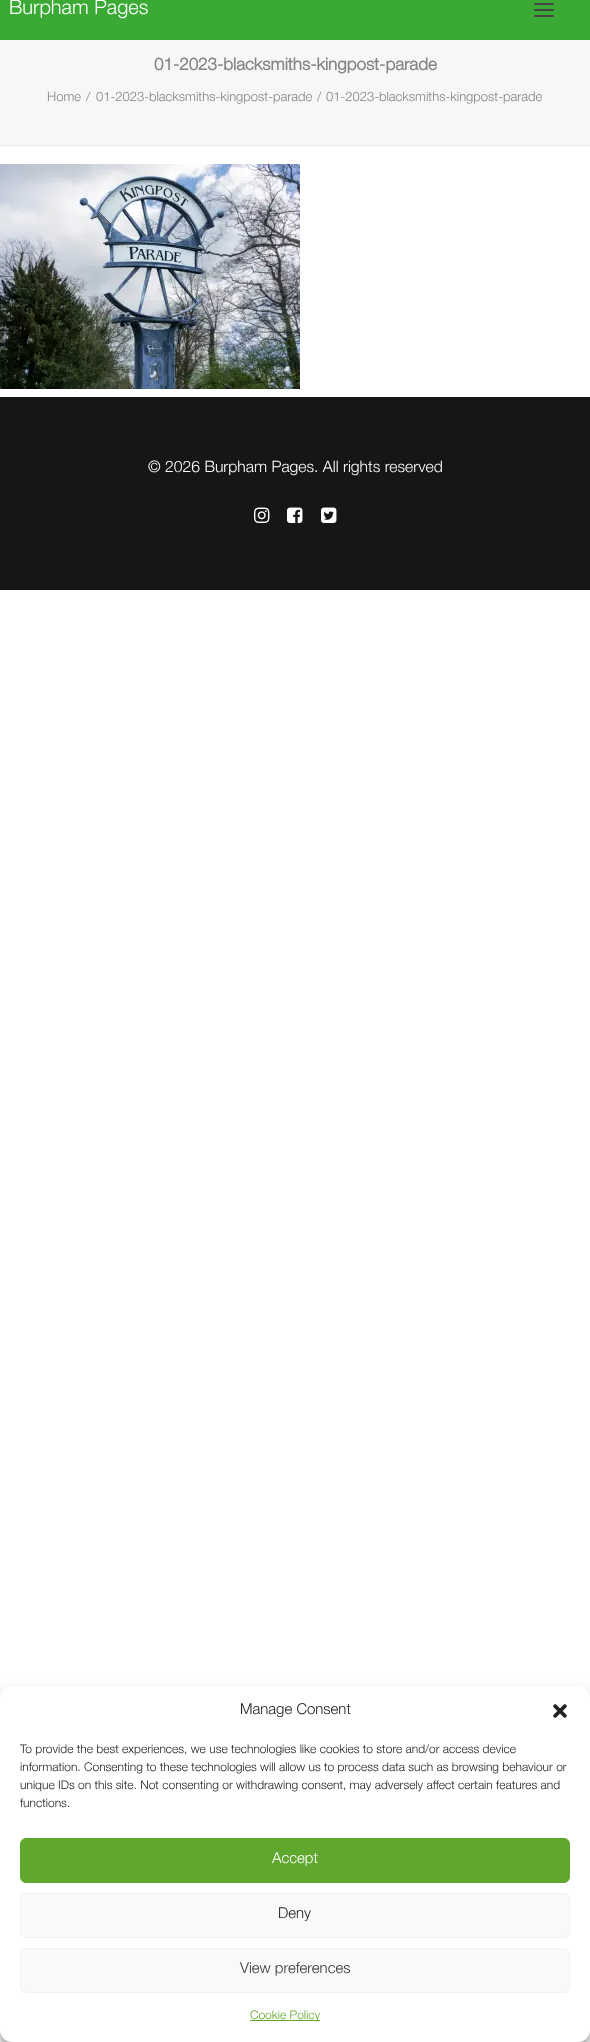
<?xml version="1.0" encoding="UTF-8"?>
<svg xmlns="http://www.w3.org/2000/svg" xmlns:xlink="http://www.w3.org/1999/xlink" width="590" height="2042">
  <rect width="100%" height="100%" fill="#ffffff" />
  <rect width="590" height="40" fill="#3aaa34" />
  <rect x="534" y="9" width="20" height="2" rx="1" fill="#444444" />
  <rect x="534" y="3" width="20" height="2" rx="1" fill="#444444" />
  <rect x="534" y="15" width="20" height="2" rx="1" fill="#444444" />
  <rect y="40" width="590" height="105" fill="#f7f7f7" />
  <rect y="145" width="590" height="1" fill="#eaeaea" />
  <image x="0" y="164" width="300" height="225" xlink:href="image1.png" />
  <rect y="397" width="590" height="193" fill="#141618" />
  <image x="254" y="507" width="16" height="16" xlink:href="image2.png" />
  <image x="287" y="507" width="16" height="16" xlink:href="image3.png" />
  <image x="321" y="507" width="16" height="16" xlink:href="image4.png" />
  <rect y="1692" width="590" height="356" rx="12" fill="#000000" fill-opacity="0.23" filter="blur(3px)" />
  <rect y="1696" width="590" height="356" rx="12" fill="#000000" fill-opacity="0.19" filter="blur(10px)" />
  <rect y="1686" width="590" height="356" rx="12" fill="#ffffff" />
  <image x="553" y="1704" width="14" height="14" xlink:href="image5.png" />
  <rect x="20.5" y="1838.5" width="549" height="44" rx="5.5" fill="#5fa72d" stroke="#5fa72d" />
  <rect x="20.5" y="1893.5" width="549" height="44" rx="5.5" fill="#f9f9f9" stroke="#f2f2f2" />
  <rect x="20.5" y="1948.5" width="549" height="44" rx="5.5" fill="#f9f9f9" stroke="#f2f2f2" />
  <rect x="250" y="2020" width="70" height="1" fill="#5fa72d" />
  <text x="9" y="14" style="font-family: Helvetica Neue; font-size: 20px; font-weight: 300; fill: #ffffff">Burpham Pages</text>
  <text x="154" y="70" style="font-family: Helvetica Neue; font-size: 17px; font-weight: bold; fill: #838383">01-2023-blacksmiths-kingpost-parade</text>
  <text x="47" y="101" style="font-family: Helvetica Neue; font-size: 13px; font-weight: 300; fill: #838383">Home</text>
  <text x="86" y="101" style="font-family: Helvetica Neue; font-size: 13px; font-weight: 300; fill: #838383">/</text>
  <text x="96" y="101" style="font-family: Helvetica Neue; font-size: 13px; font-weight: 300; fill: #838383">01-2023-blacksmiths-kingpost-parade</text>
  <text x="317" y="101" style="font-family: Helvetica Neue; font-size: 13px; font-weight: 300; fill: #838383">/</text>
  <text x="326" y="101" style="font-family: Helvetica Neue; font-size: 13px; font-weight: 300; fill: #838383">01-2023-blacksmiths-kingpost-parade</text>
  <text x="148" y="472" style="font-family: Helvetica Neue; font-size: 15.75px; font-weight: 300; fill: #ffffff">© 2026 Burpham Pages. All rights reserved</text>
  <text x="240" y="1714" style="font-family: Helvetica Neue; font-size: 15px; font-weight: 300; fill: #222222">Manage Consent</text>
  <text x="20" y="1753" style="font-family: Helvetica Neue; font-size: 12px; font-weight: 300; fill: #222222">To provide the best experiences, we use technologies like cookies to store and/or access device</text>
  <text x="20" y="1771" style="font-family: Helvetica Neue; font-size: 12px; font-weight: 300; fill: #222222">information. Consenting to these technologies will allow us to process data such as browsing behaviour or</text>
  <text x="20" y="1789" style="font-family: Helvetica Neue; font-size: 12px; font-weight: 300; fill: #222222">unique IDs on this site. Not consenting or withdrawing consent, may adversely affect certain features and</text>
  <text x="20" y="1807" style="font-family: Helvetica Neue; font-size: 12px; font-weight: 300; fill: #222222">functions.</text>
  <text x="272" y="1863" style="font-family: Helvetica Neue; font-size: 15px; font-weight: 300; fill: #ffffff">Accept</text>
  <text x="278" y="1918" style="font-family: Helvetica Neue; font-size: 15px; font-weight: 300; fill: #222222">Deny</text>
  <text x="240" y="1973" style="font-family: Helvetica Neue; font-size: 15px; font-weight: 300; fill: #333333">View preferences</text>
  <text x="250" y="2019" style="font-family: Helvetica Neue; font-size: 12px; font-weight: 300; fill: #5fa72d">Cookie Policy</text>
</svg>
